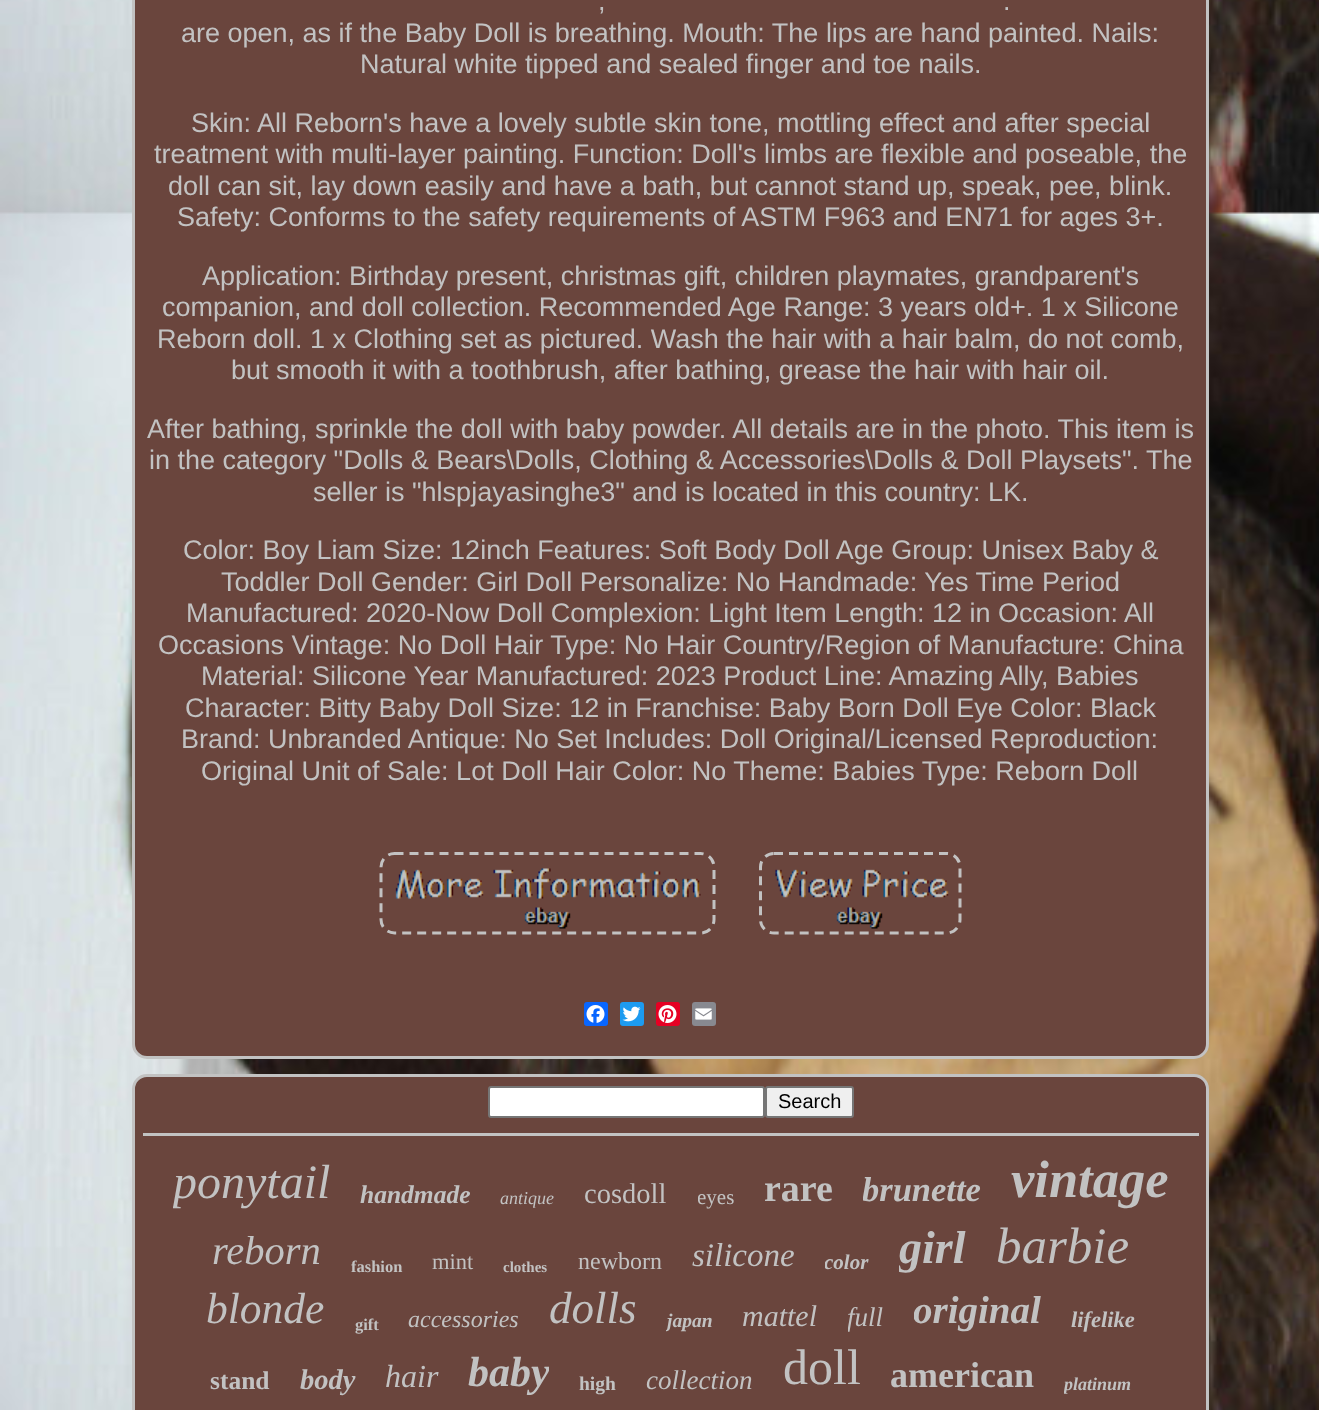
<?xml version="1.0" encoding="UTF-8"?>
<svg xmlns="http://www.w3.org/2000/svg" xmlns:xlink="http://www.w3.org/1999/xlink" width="1319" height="1410">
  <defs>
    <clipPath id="clip1"><rect x="173" y="1155" width="157" height="56" /></clipPath>
    <clipPath id="clip2"><rect x="698" y="1187" width="36" height="24" /></clipPath>
    <clipPath id="clip3"><rect x="863" y="1172" width="118" height="39" /></clipPath>
    <clipPath id="clip4"><rect x="825" y="1251" width="44" height="24" /></clipPath>
    <clipPath id="clip5"><rect x="899" y="1221" width="67" height="54" /></clipPath>
    <clipPath id="clip6"><rect x="666" y="1310" width="47" height="24" /></clipPath>
    <clipPath id="clip7"><rect x="848" y="1302" width="36" height="32" /></clipPath>
    <clipPath id="clip8"><rect x="914" y="1289" width="127" height="45" /></clipPath>
    <clipPath id="clip9"><rect x="468" y="1349" width="81" height="48" /></clipPath>
    <clipPath id="clip10"><rect x="1064" y="1374" width="67" height="23" /></clipPath>
  </defs>
  <rect width="100%" height="100%" fill="#ffffff" />
  <image x="0" y="0" width="1319" height="1410" xlink:href="image1.png" />
  <rect x="133.5" y="-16.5" width="1074" height="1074" rx="13.5" fill="#6a453d" stroke="#c2c2c2" stroke-width="3" />
  <path d="M 394.5 853.5 h 306 c 7.5 0 13.5 6 13.5 13.5 v 52.5 c 0 7.5 -6 13.5 -13.5 13.5 h -306 c -7.5 0 -13.5 -6 -13.5 -13.5 v -52.5 c 0 -7.5 6 -13.5 13.5 -13.5 z" fill="none" stroke="#c2c2c2" stroke-width="3" stroke-dasharray="9 6" />
  <path d="M 774 853.5 h 172.5 c 7.5 0 13.5 6 13.5 13.5 v 52.5 c 0 7.5 -6 13.5 -13.5 13.5 h -172.5 c -7.5 0 -13.5 -6 -13.5 -13.5 v -52.5 c 0 -7.5 6 -13.5 13.5 -13.5 z" fill="none" stroke="#c2c2c2" stroke-width="3" stroke-dasharray="9 6" />
  <image x="395" y="868" width="306" height="61" xlink:href="image2.png" />
  <image x="775" y="869" width="174" height="60" xlink:href="image3.png" />
  <rect x="584" y="1002" width="24" height="24" rx="3" fill="#0866ff" />
  <image x="586" y="1005" width="19" height="18" xlink:href="image4.png" />
  <rect x="620" y="1002" width="24" height="24" rx="3" fill="#1d9bf0" />
  <image x="622" y="1006" width="19" height="16" xlink:href="image5.png" />
  <rect x="656" y="1002" width="24" height="24" rx="3" fill="#e60023" />
  <image x="658" y="1005" width="19" height="18" xlink:href="image6.png" />
  <rect x="692" y="1002" width="24" height="24" rx="3" fill="#888990" />
  <image x="695" y="1008" width="17" height="12" xlink:href="image7.png" />
  <rect x="133.5" y="1075.5" width="1074" height="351" rx="13.5" fill="#6a453d" stroke="#c2c2c2" stroke-width="3" />
  <rect x="489" y="1087" width="275" height="30" rx="2" fill="#ffffff" stroke="#767676" stroke-width="2" />
  <rect x="766" y="1087" width="87" height="30" rx="2" fill="#efefef" stroke="#767676" stroke-width="2" />
  <rect x="143" y="1133" width="1056" height="3" fill="#c2c2c2" />
  <text x="598" y="10" style="font-family: Liberation Sans; font-size: 27px; fill: #c2c2c2">,</text>
  <text x="1003" y="10" style="font-family: Liberation Sans; font-size: 27px; fill: #c2c2c2">.</text>
  <text x="181" y="42" style="font-family: Liberation Sans; font-size: 27px; fill: #c2c2c2">are open, as if the Baby Doll is breathing. Mouth: The lips are hand painted. Nails:</text>
  <text x="360" y="73" style="font-family: Liberation Sans; font-size: 27px; fill: #c2c2c2">Natural white tipped and sealed finger and toe nails.</text>
  <text x="191" y="132" style="font-family: Liberation Sans; font-size: 27px; fill: #c2c2c2">Skin: All Reborn's have a lovely subtle skin tone, mottling effect and after special</text>
  <text x="154" y="163" style="font-family: Liberation Sans; font-size: 27px; fill: #c2c2c2">treatment with multi-layer painting. Function: Doll's limbs are flexible and poseable, the</text>
  <text x="168" y="195" style="font-family: Liberation Sans; font-size: 27px; fill: #c2c2c2">doll can sit, lay down easily and have a bath, but cannot stand up, speak, pee, blink.</text>
  <text x="177" y="226" style="font-family: Liberation Sans; font-size: 27px; fill: #c2c2c2">Safety: Conforms to the safety requirements of ASTM F963 and EN71 for ages 3+.</text>
  <text x="202" y="285" style="font-family: Liberation Sans; font-size: 27px; fill: #c2c2c2">Application: Birthday present, christmas gift, children playmates, grandparent's</text>
  <text x="162" y="316" style="font-family: Liberation Sans; font-size: 27px; fill: #c2c2c2">companion, and doll collection. Recommended Age Range: 3 years old+. 1 x Silicone</text>
  <text x="157" y="348" style="font-family: Liberation Sans; font-size: 27px; fill: #c2c2c2">Reborn doll. 1 x Clothing set as pictured. Wash the hair with a hair balm, do not comb,</text>
  <text x="231" y="379" style="font-family: Liberation Sans; font-size: 27px; fill: #c2c2c2">but smooth it with a toothbrush, after bathing, grease the hair with hair oil.</text>
  <text x="147" y="438" style="font-family: Liberation Sans; font-size: 27px; fill: #c2c2c2">After bathing, sprinkle the doll with baby powder. All details are in the photo. This item is</text>
  <text x="149" y="469" style="font-family: Liberation Sans; font-size: 27px; fill: #c2c2c2">in the category "Dolls &amp; Bears\Dolls, Clothing &amp; Accessories\Dolls &amp; Doll Playsets". The</text>
  <text x="313" y="501" style="font-family: Liberation Sans; font-size: 27px; fill: #c2c2c2">seller is "hlspjayasinghe3" and is located in this country: LK.</text>
  <text x="183" y="559" style="font-family: Liberation Sans; font-size: 27px; fill: #c2c2c2">Color: Boy Liam Size: 12inch Features: Soft Body Doll Age Group: Unisex Baby &amp;</text>
  <text x="221" y="591" style="font-family: Liberation Sans; font-size: 27px; fill: #c2c2c2">Toddler Doll Gender: Girl Doll Personalize: No Handmade: Yes Time Period</text>
  <text x="186" y="622" style="font-family: Liberation Sans; font-size: 27px; fill: #c2c2c2">Manufactured: 2020-Now Doll Complexion: Light Item Length: 12 in Occasion: All</text>
  <text x="158" y="654" style="font-family: Liberation Sans; font-size: 27px; fill: #c2c2c2">Occasions Vintage: No Doll Hair Type: No Hair Country/Region of Manufacture: China</text>
  <text x="201" y="685" style="font-family: Liberation Sans; font-size: 27px; fill: #c2c2c2">Material: Silicone Year Manufactured: 2023 Product Line: Amazing Ally, Babies</text>
  <text x="185" y="717" style="font-family: Liberation Sans; font-size: 27px; fill: #c2c2c2">Character: Bitty Baby Doll Size: 12 in Franchise: Baby Born Doll Eye Color: Black</text>
  <text x="181" y="748" style="font-family: Liberation Sans; font-size: 27px; fill: #c2c2c2">Brand: Unbranded Antique: No Set Includes: Doll Original/Licensed Reproduction:</text>
  <text x="201" y="780" style="font-family: Liberation Sans; font-size: 27px; fill: #c2c2c2">Original Unit of Sale: Lot Doll Hair Color: No Theme: Babies Type: Reborn Doll</text>
  <text x="778" y="1108" style="font-family: Liberation Sans; font-size: 20px; fill: #000000">Search</text>
  <g clip-path="url(#clip1)">
    <text x="173" y="1198" style="font-family: Liberation Serif; font-size: 48px; font-style: italic; fill: #c2c2c2">ponytail</text>
  </g>
  <text x="360" y="1203" style="font-family: Liberation Serif; font-size: 25.5px; font-weight: bold; font-style: italic; fill: #c2c2c2">handmade</text>
  <text x="500" y="1204" style="font-family: Liberation Serif; font-size: 18px; font-style: italic; fill: #c2c2c2">antique</text>
  <text x="584" y="1203" style="font-family: Liberation Serif; font-size: 28.5px; fill: #c2c2c2">cosdoll</text>
  <g clip-path="url(#clip2)">
    <text x="697" y="1204" style="font-family: Liberation Serif; font-size: 21px; fill: #c2c2c2">eyes</text>
  </g>
  <text x="764" y="1201" style="font-family: Liberation Serif; font-size: 38px; font-weight: bold; fill: #c2c2c2">rare</text>
  <g clip-path="url(#clip3)">
    <text x="862" y="1201" style="font-family: Liberation Serif; font-size: 34.5px; font-weight: bold; font-style: italic; fill: #c2c2c2">brunette</text>
  </g>
  <text x="1011" y="1197" style="font-family: Liberation Serif; font-size: 52.5px; font-weight: bold; font-style: italic; fill: #c2c2c2">vintage</text>
  <text x="212" y="1264" style="font-family: Liberation Serif; font-size: 40.5px; font-style: italic; fill: #c2c2c2">reborn</text>
  <text x="351" y="1272" style="font-family: Liberation Serif; font-size: 16.5px; font-weight: bold; fill: #c2c2c2">fashion</text>
  <text x="432" y="1269" style="font-family: Liberation Serif; font-size: 22.5px; fill: #c2c2c2">mint</text>
  <text x="503" y="1272" style="font-family: Liberation Serif; font-size: 15px; font-weight: bold; fill: #c2c2c2">clothes</text>
  <text x="578" y="1269" style="font-family: Liberation Serif; font-size: 24px; fill: #c2c2c2">newborn</text>
  <text x="692" y="1266" style="font-family: Liberation Serif; font-size: 33px; font-style: italic; fill: #c2c2c2">silicone</text>
  <g clip-path="url(#clip4)">
    <text x="824" y="1269" style="font-family: Liberation Serif; font-size: 21px; font-weight: bold; font-style: italic; fill: #c2c2c2">color</text>
  </g>
  <g clip-path="url(#clip5)">
    <text x="899" y="1263" style="font-family: Liberation Serif; font-size: 46px; font-weight: bold; font-style: italic; fill: #c2c2c2">girl</text>
  </g>
  <text x="996" y="1263" style="font-family: Liberation Serif; font-size: 51px; font-style: italic; fill: #c2c2c2">barbie</text>
  <text x="206" y="1323" style="font-family: Liberation Serif; font-size: 43.5px; font-style: italic; fill: #c2c2c2">blonde</text>
  <text x="355" y="1330" style="font-family: Liberation Serif; font-size: 16.5px; font-weight: bold; fill: #c2c2c2">gift</text>
  <text x="408" y="1327" style="font-family: Liberation Serif; font-size: 24px; font-style: italic; fill: #c2c2c2">accessories</text>
  <text x="549" y="1323" style="font-family: Liberation Serif; font-size: 45px; font-style: italic; fill: #c2c2c2">dolls</text>
  <g clip-path="url(#clip6)">
    <text x="667" y="1327" style="font-family: Liberation Serif; font-size: 19.5px; font-weight: bold; font-style: italic; fill: #c2c2c2">japan</text>
  </g>
  <text x="742" y="1326" style="font-family: Liberation Serif; font-size: 30px; font-style: italic; fill: #c2c2c2">mattel</text>
  <g clip-path="url(#clip7)">
    <text x="847" y="1326" style="font-family: Liberation Serif; font-size: 27px; font-style: italic; fill: #c2c2c2">full</text>
  </g>
  <g clip-path="url(#clip8)">
    <text x="913" y="1323" style="font-family: Liberation Serif; font-size: 39px; font-weight: bold; font-style: italic; fill: #c2c2c2">original</text>
  </g>
  <text x="1071" y="1327" style="font-family: Liberation Serif; font-size: 22.5px; font-weight: bold; font-style: italic; fill: #c2c2c2">lifelike</text>
  <text x="210" y="1389" style="font-family: Liberation Serif; font-size: 25.5px; font-weight: bold; fill: #c2c2c2">stand</text>
  <text x="300" y="1389" style="font-family: Liberation Serif; font-size: 28.5px; font-weight: bold; font-style: italic; fill: #c2c2c2">body</text>
  <text x="385" y="1387" style="font-family: Liberation Serif; font-size: 32px; font-style: italic; fill: #c2c2c2">hair</text>
  <g clip-path="url(#clip9)">
    <text x="468" y="1386" style="font-family: Liberation Serif; font-size: 42px; font-weight: bold; font-style: italic; fill: #c2c2c2">baby</text>
  </g>
  <text x="579" y="1390" style="font-family: Liberation Serif; font-size: 19.5px; font-weight: bold; fill: #c2c2c2">high</text>
  <text x="646" y="1389" style="font-family: Liberation Serif; font-size: 27px; font-style: italic; fill: #c2c2c2">collection</text>
  <text x="783" y="1384" style="font-family: Liberation Serif; font-size: 50px; fill: #c2c2c2">doll</text>
  <text x="890" y="1387" style="font-family: Liberation Serif; font-size: 36px; font-weight: bold; fill: #c2c2c2">american</text>
  <g clip-path="url(#clip10)">
    <text x="1064" y="1390" style="font-family: Liberation Serif; font-size: 18px; font-weight: bold; font-style: italic; fill: #c2c2c2">platinum</text>
  </g>
</svg>
